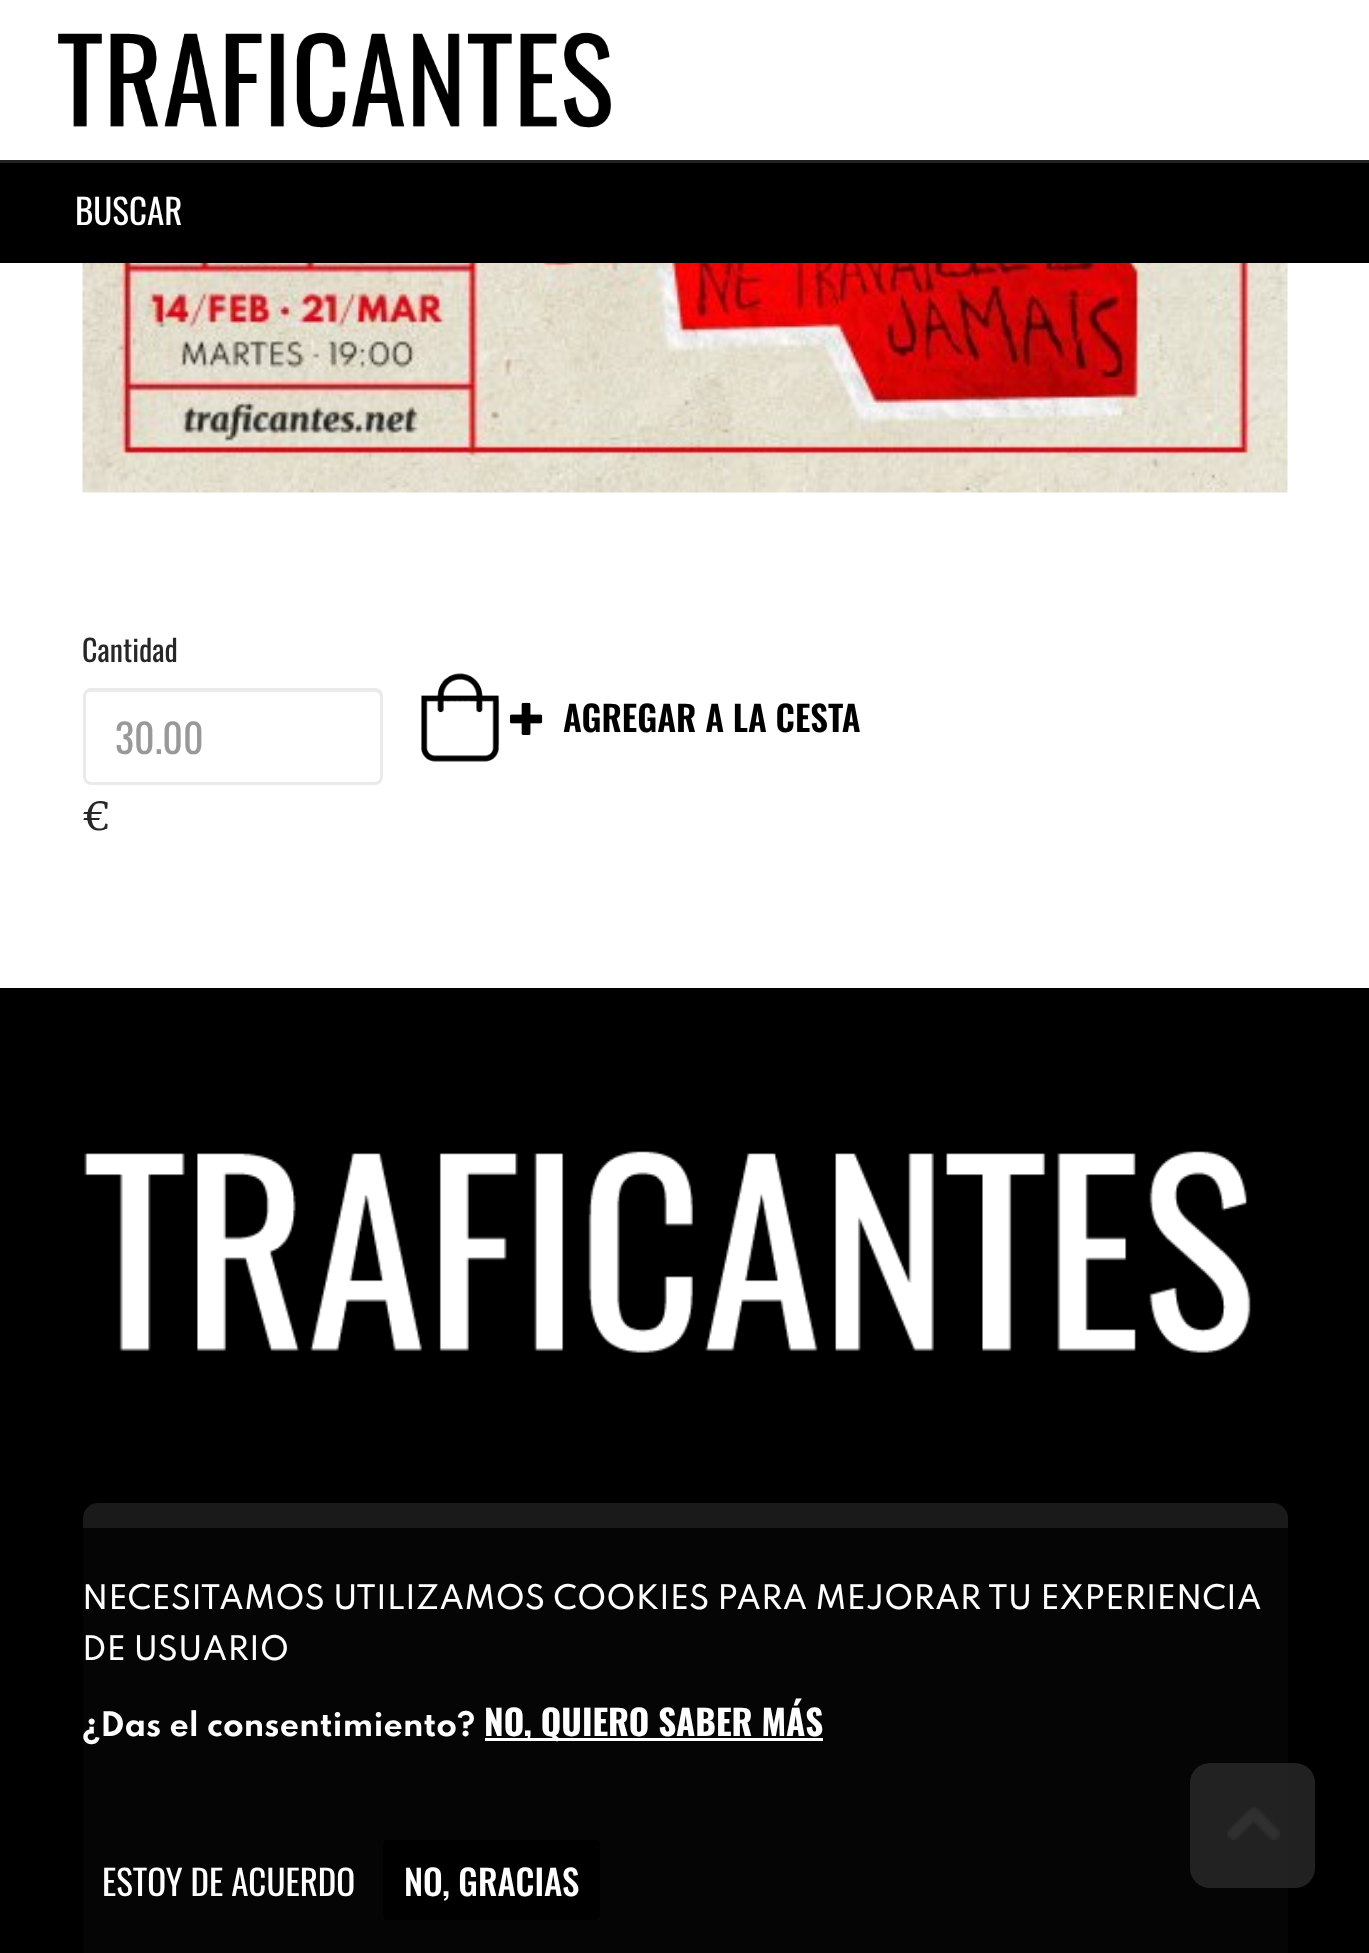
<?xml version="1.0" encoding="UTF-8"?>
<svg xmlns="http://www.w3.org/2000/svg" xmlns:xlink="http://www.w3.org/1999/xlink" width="1369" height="1953">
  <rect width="100%" height="100%" fill="#ffffff" />
  <image x="58" y="32" width="553" height="96" xlink:href="image1.png" />
  <rect y="160" width="1369" height="3" fill="#222222" />
  <rect y="163" width="1369" height="100" fill="#000000" />
  <image x="82" y="263" width="1206" height="230" xlink:href="image2.png" />
  <path d="M 90 692 h 285 c 3 0 5 3 5 6 c 0 -3 0 -7 -4 -8 h -287 c -4 1 -4 5 -4 8 c 0 -3 2 -6 5 -6 z" fill="#ececec" />
  <rect x="84.5" y="689.5" width="297" height="94" rx="6.5" fill="none" stroke="#eaeaea" stroke-width="3" />
  <image x="421" y="673" width="79" height="89" xlink:href="image3.png" />
  <image x="510" y="702" width="33" height="33" xlink:href="image4.png" />
  <rect y="988" width="1369" height="965" fill="#000000" />
  <image x="84" y="1151" width="1167" height="202" xlink:href="image5.png" />
  <rect x="83" y="1503" width="1205" height="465" rx="15" fill="#1a1a1a" />
  <rect x="1190" y="1763" width="125" height="125" rx="20" fill="#cccccc" fill-opacity="0.8" />
  <image x="1227" y="1807" width="53" height="33" xlink:href="image6.png" />
  <rect y="1528" width="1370" height="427" rx="5" fill="#000000" fill-opacity="0.8" />
  <rect x="485" y="1738" width="338" height="3" fill="#ffffff" />
  <rect x="383" y="1840" width="217" height="80" rx="5" fill="#000000" />
  <text x="75" y="225" style="font-family: Oswald; font-size: 35px; fill: #ffffff">BUSCAR</text>
  <text x="82" y="662" style="font-family: Oswald; font-size: 30px; fill: #272727">Cantidad</text>
  <text x="115" y="754" style="font-family: Oswald; font-size: 40px; fill: #999999">30.00</text>
  <text x="82" y="830" style="font-family: Merriweather; font-size: 38px; fill: #272727">€</text>
  <text x="563" y="732" style="font-family: Oswald; font-size: 35px; font-weight: 600; fill: #000000">AGREGAR A LA CESTA</text>
  <text x="82" y="1609" style="font-family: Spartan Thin; font-size: 30px; font-weight: 500; fill: #ffffff">NECESITAMOS UTILIZAMOS COOKIES PARA MEJORAR TU EXPERIENCIA</text>
  <text x="82" y="1660" style="font-family: Spartan Thin; font-size: 30px; font-weight: 500; fill: #ffffff">DE USUARIO</text>
  <text x="82" y="1736" style="font-family: Spartan Thin; font-size: 30px; font-weight: bold; fill: #ffffff">¿Das el consentimiento?</text>
  <text x="484" y="1736" style="font-family: Oswald; font-size: 35px; font-weight: bold; fill: #ffffff">NO, QUIERO SABER MÁS</text>
  <text x="102" y="1896" style="font-family: Oswald; font-size: 35px; fill: #ffffff">ESTOY DE ACUERDO</text>
  <text x="404" y="1896" style="font-family: Oswald; font-size: 35px; font-weight: 500; fill: #ffffff">NO, GRACIAS</text>
</svg>
